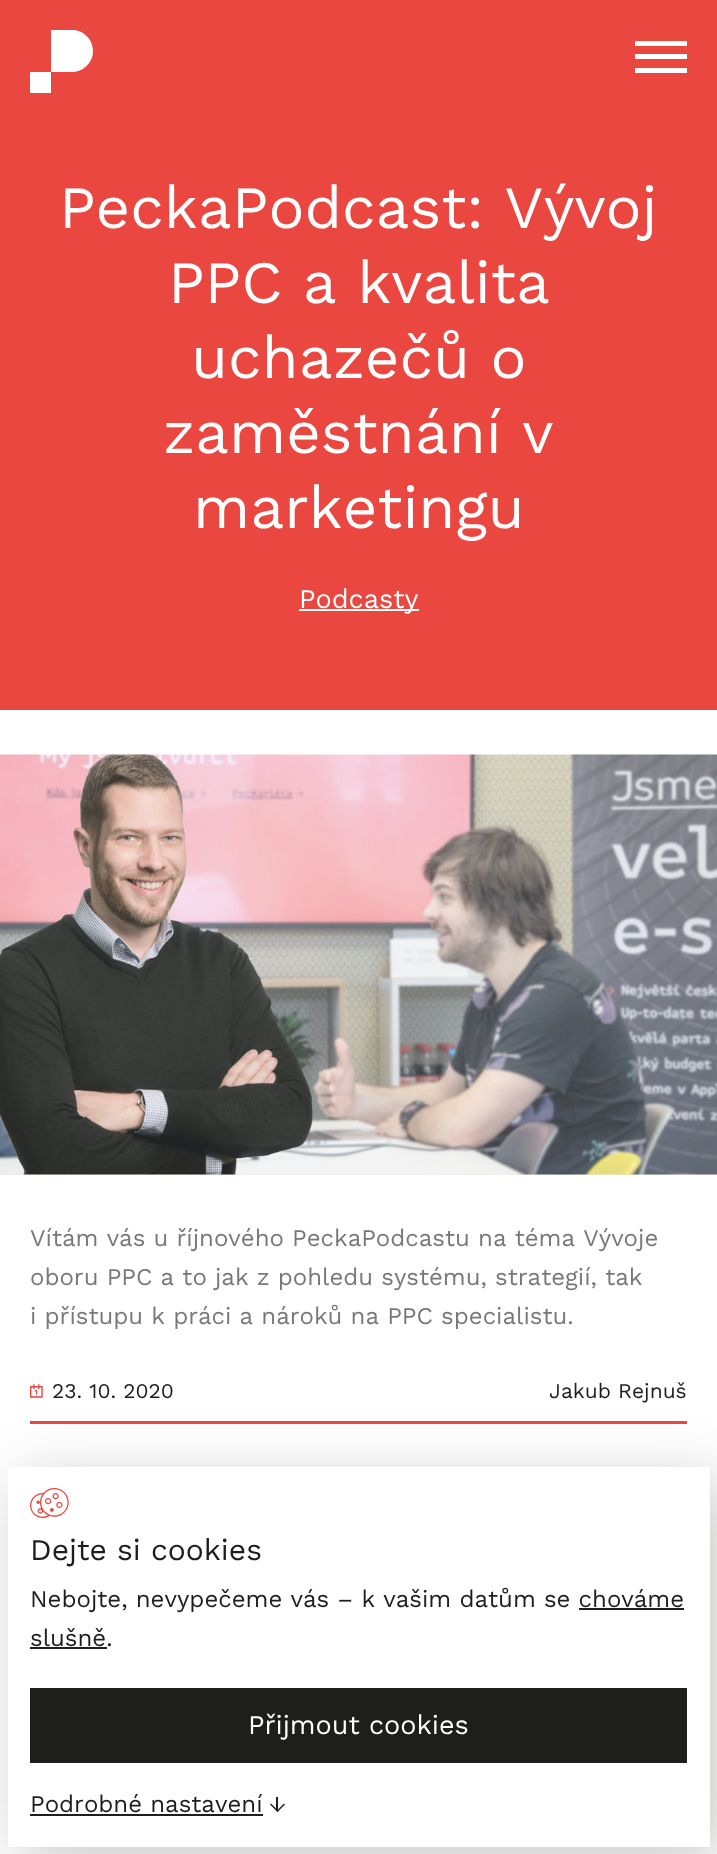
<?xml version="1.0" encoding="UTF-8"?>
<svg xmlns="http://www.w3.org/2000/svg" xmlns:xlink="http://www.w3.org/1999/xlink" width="717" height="1854">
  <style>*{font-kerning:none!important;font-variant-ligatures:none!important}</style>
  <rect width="100%" height="100%" fill="#ffffff" />
  <rect width="717" height="710" fill="#e9473f" />
  <image x="30" y="30" width="63" height="63" xlink:href="image1.png" />
  <rect x="635" y="68" width="52" height="5" fill="#ffffff" />
  <rect x="635" y="41" width="52" height="5" fill="#ffffff" />
  <rect x="635" y="54" width="52" height="5" fill="#ffffff" />
  <rect x="299" y="609" width="120" height="2" fill="#ffffff" />
  <rect y="1174" width="717" height="1" fill="#eeeae5" />
  <image x="0" y="754" width="717" height="421" xlink:href="image2.png" />
  <rect x="30" y="1421" width="657" height="3" fill="#e9473f" />
  <rect x="20" y="1481" width="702" height="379" fill="#1e1f1c" fill-opacity="0.25" filter="blur(31px)" />
  <rect x="8" y="1467" width="702" height="380" fill="#ffffff" />
  <rect x="579" y="1608" width="105" height="2" fill="#1e1f1c" />
  <rect x="30" y="1647" width="77" height="2" fill="#1e1f1c" />
  <rect x="30" y="1688" width="657" height="75" fill="#1e1f1c" />
  <rect x="30" y="1814" width="233" height="2" fill="#1e1f1c" />
  <rect x="276" y="1797" width="2" height="14" fill="#1e1f1c" />
  <path d="M 270 1804.5 l 1 -1 l 7.5 7.5 l -1 1 z" fill="#1e1f1c" />
  <path d="M 284 1803.5 l 1 1 l -7.5 7.5 l -1 -1 z" fill="#1e1f1c" />
  <text x="59" y="228" style="font-family: Work Sans; font-size: 60px; fill: #ffffff">PeckaPodcast: Vývoj</text>
  <text x="168" y="303" style="font-family: Work Sans; font-size: 60px; fill: #ffffff">PPC a kvalita</text>
  <text x="191" y="378" style="font-family: Work Sans; font-size: 60px; fill: #ffffff">uchazečů o</text>
  <text x="163" y="453" style="font-family: Work Sans; font-size: 60px; fill: #ffffff">zaměstnání v</text>
  <text x="193" y="528" style="font-family: Work Sans; font-size: 60px; fill: #ffffff">marketingu</text>
  <text x="299" y="608" style="font-family: Work Sans; font-size: 27px; fill: #ffffff">Podcasty</text>
  <text x="30" y="1246" style="font-family: Work Sans; font-size: 24px; fill: #787977">Vítám vás u říjnového PeckaPodcastu na téma Vývoje</text>
  <text x="30" y="1285" style="font-family: Work Sans; font-size: 24px; fill: #787977">oboru PPC a to jak z pohledu systému, strategií, tak</text>
  <text x="30" y="1324" style="font-family: Work Sans; font-size: 24px; fill: #787977">i přístupu k práci a nároků na PPC specialistu.</text>
  <text x="30" y="1398" style="font-family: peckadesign; font-size: 15px; fill: #e9473f">📆</text>
  <text x="52" y="1398" style="font-family: Work Sans; font-size: 21px; fill: #1e1f1c">23. 10. 2020</text>
  <text x="549" y="1398" style="font-family: Work Sans; font-size: 21px; fill: #1e1f1c">Jakub Rejnuš</text>
  <text x="30" y="1518" style="font-family: peckadesign; font-size: 30px; fill: #e9473f">🍪</text>
  <text x="30" y="1560" style="font-family: Work Sans; font-size: 30px; fill: #1e1f1c">Dejte si cookies</text>
  <text x="30" y="1607" style="font-family: Work Sans; font-size: 24px; fill: #1e1f1c">Nebojte, nevypečeme vás – k vašim datům se chováme</text>
  <text x="30" y="1646" style="font-family: Work Sans; font-size: 24px; fill: #1e1f1c">slušně.</text>
  <text x="248" y="1734" style="font-family: Work Sans; font-size: 27px; fill: #ffffff">Přijmout cookies</text>
  <text x="30" y="1812" style="font-family: Work Sans; font-size: 24px; fill: #1e1f1c">Podrobné nastavení</text>
</svg>
